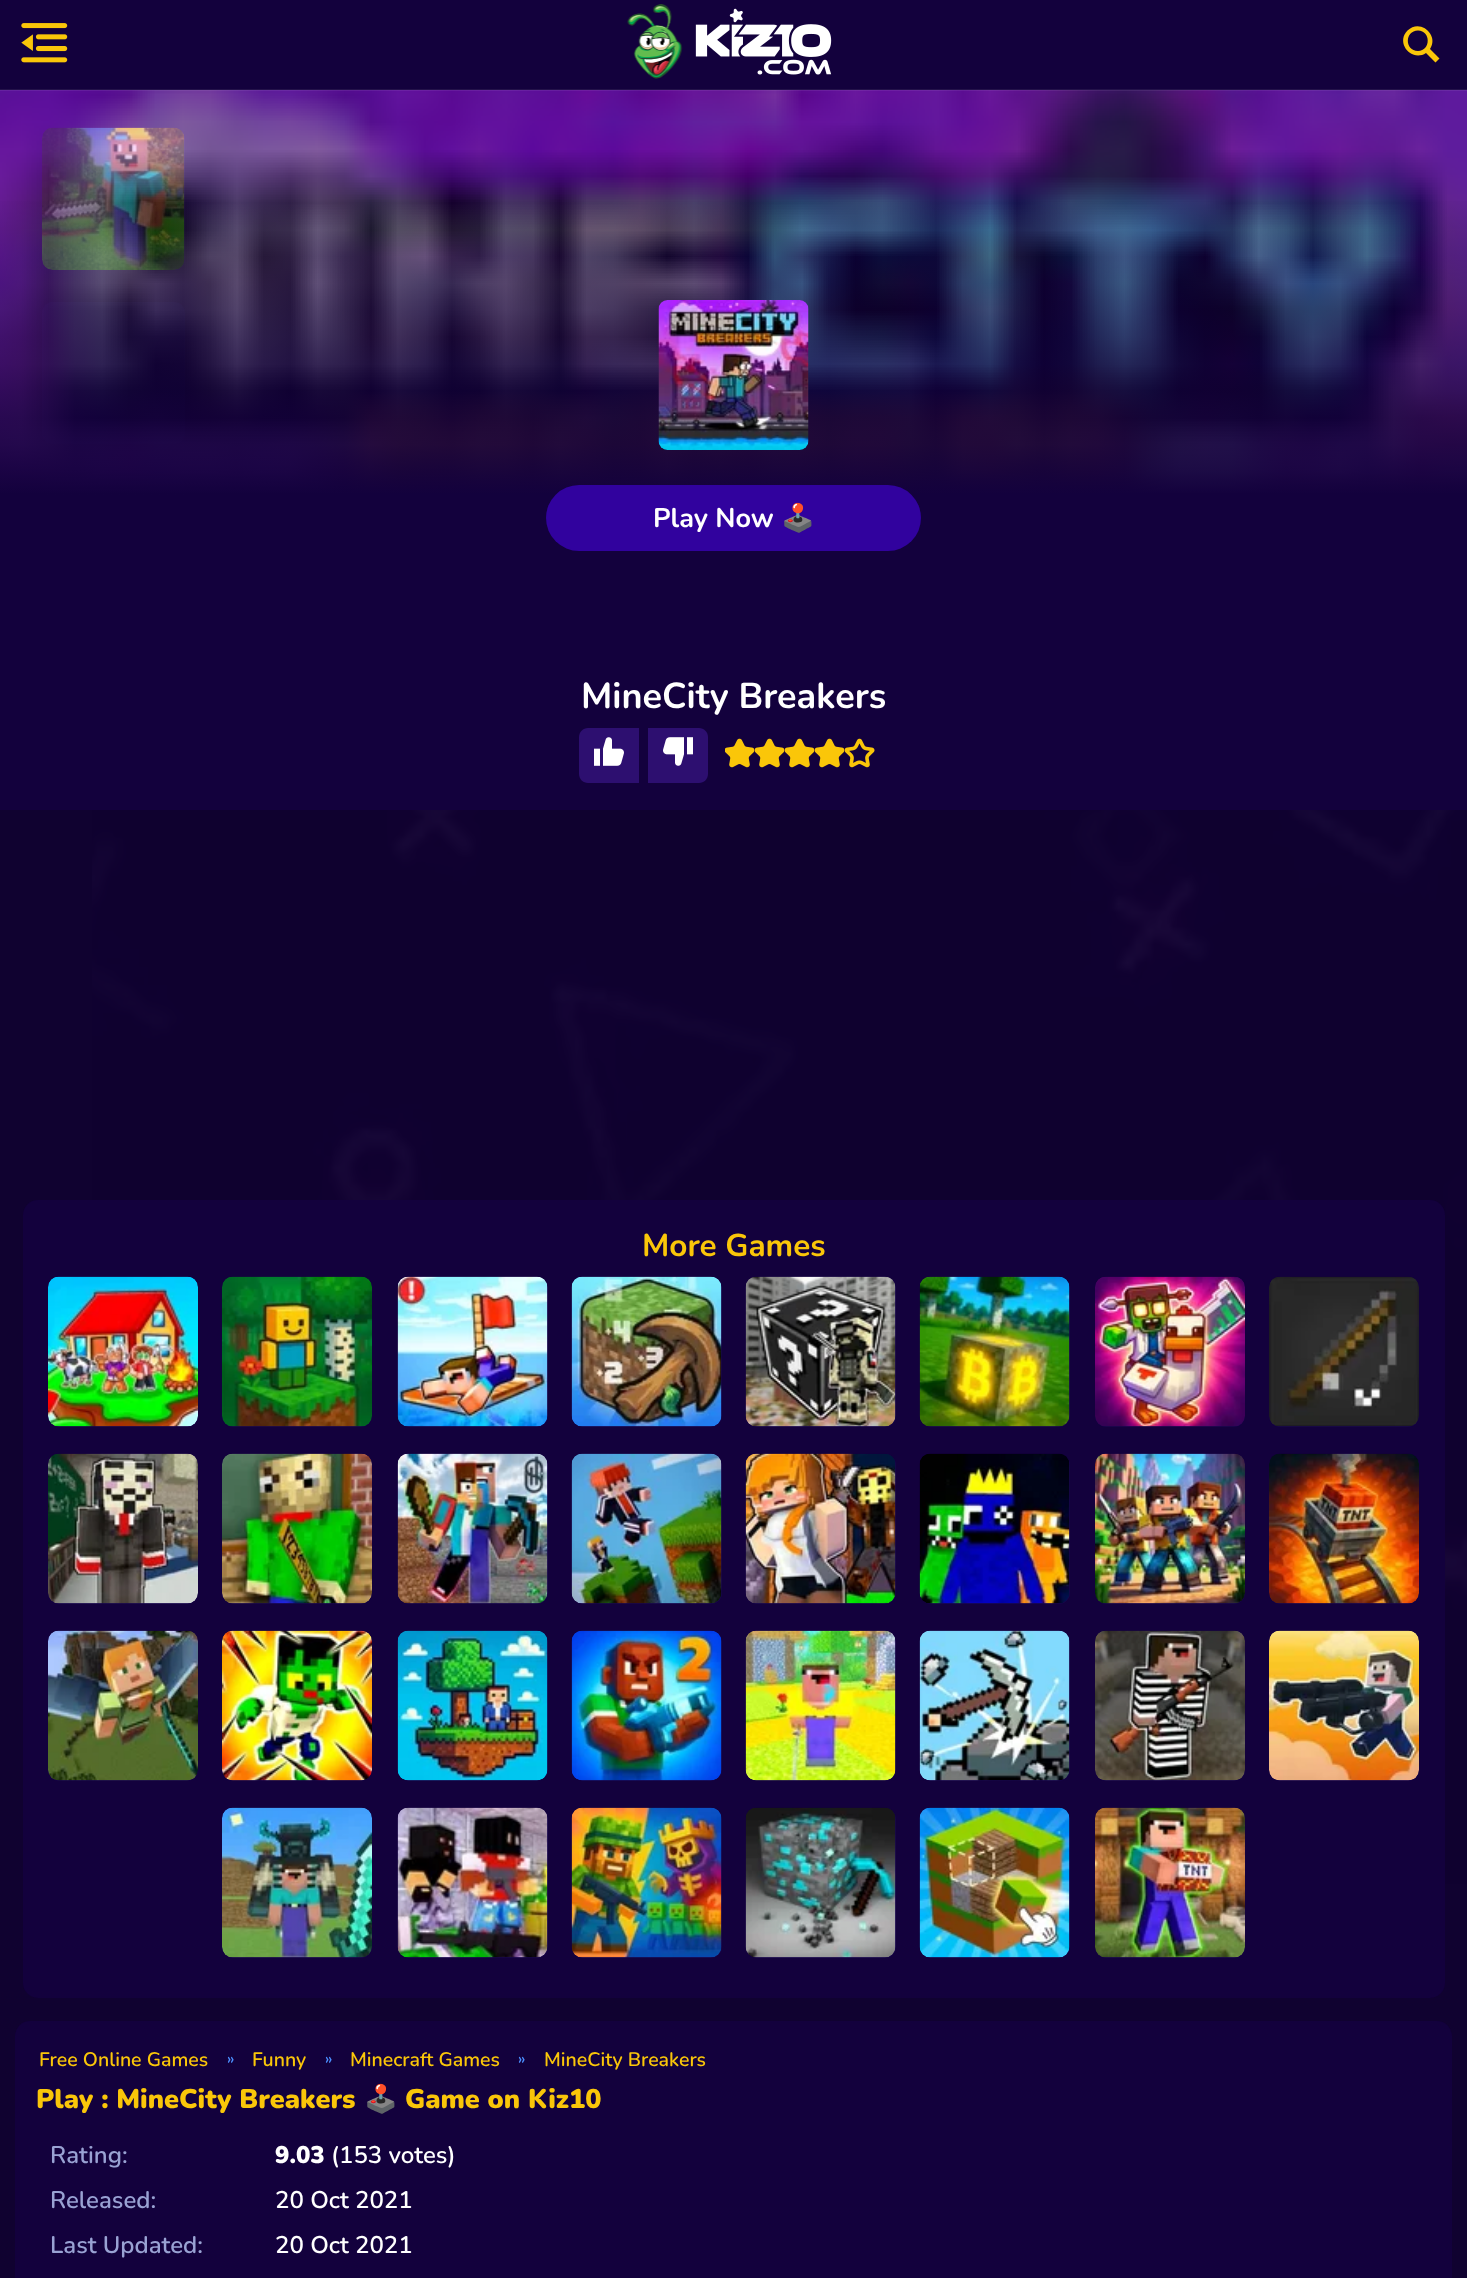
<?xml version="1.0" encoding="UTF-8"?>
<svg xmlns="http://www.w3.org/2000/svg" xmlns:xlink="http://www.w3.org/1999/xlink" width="1467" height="2278">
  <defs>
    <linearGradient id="g1" gradientUnits="userSpaceOnUse" x1="734" y1="195" x2="734" y2="795"><stop offset="0" stop-color="#13013d" stop-opacity="0" /><stop offset="0.5" stop-color="#13013d" /><stop offset="1" stop-color="#13013d" /></linearGradient>
  </defs>
  <rect width="100%" height="100%" fill="#100230" />
  <rect width="1467" height="810" fill="#13013d" />
  <rect x="42" y="128" width="143" height="142" rx="11" fill="#17064b" />
  <image x="42" y="127" width="143" height="143" xlink:href="image4.png" />
  <rect x="42" y="302" width="143" height="142" rx="11" fill="#17064b" />
  <rect x="42" y="476" width="143" height="142" rx="11" fill="#17064b" />
  <image x="0" y="90" width="1467" height="403" xlink:href="image5.png" />
  <rect y="89" width="1467" height="2" fill="#ffffff" fill-opacity="0.07" />
  <image x="21" y="23" width="47" height="40" xlink:href="image1.png" />
  <image x="627" y="4" width="56" height="75" xlink:href="image2.png" />
  <image x="695" y="8" width="137" height="67" xlink:href="image3.png" />
  <path d="M 1439.5 58.5 l -9.5 -9.5 c 9.5 -14 -10 -31 -22.5 -18.5 c -12.5 12.5 4.5 32 18.5 22.5 l 9.5 9.5 z m -21.5 -7.5 c -13.5 0 -13.5 -20.5 0 -20.5 c 13 0 13 20.5 0 20.5 z" fill="#fac609" />
  <rect y="201" width="1467" height="417" fill="url(#g1)" />
  <image x="658" y="300" width="151" height="150" xlink:href="image6.png" />
  <rect x="546" y="485" width="375" height="66" rx="33" fill="#31029e" />
  <path d="M 588 728 h 51 v 55 h -51 c -5 0 -9 -4 -9 -9 v -37 c 0 -5 4 -9 9 -9 z" fill="#2d0f70" />
  <image x="594" y="737" width="30" height="29" xlink:href="image7.png" />
  <path d="M 648 728 h 51 c 5 0 9 4 9 9 v 37 c 0 5 -4 9 -9 9 h -51 z" fill="#2d0f70" />
  <image x="663" y="737" width="30" height="29" xlink:href="image8.png" />
  <image x="725" y="738" width="30" height="30" xlink:href="image9.png" />
  <image x="755" y="738" width="30" height="30" xlink:href="image9.png" />
  <image x="785" y="738" width="30" height="30" xlink:href="image9.png" />
  <image x="815" y="738" width="30" height="30" xlink:href="image9.png" />
  <image x="845" y="738" width="30" height="30" xlink:href="image10.png" />
  <image x="92" y="810" width="1375" height="1074" xlink:href="image11.png" />
  <rect x="23" y="1200" width="1422" height="798" rx="15" fill="#13013d" />
  <rect x="48" y="1277" width="150" height="150" rx="11" fill="#17064b" />
  <image x="48" y="1276" width="150" height="151" xlink:href="image12.png" />
  <rect x="222" y="1277" width="150" height="150" rx="11" fill="#17064b" />
  <image x="222" y="1276" width="150" height="151" xlink:href="image13.png" />
  <rect x="398" y="1277" width="150" height="150" rx="11" fill="#17064b" />
  <image x="397" y="1276" width="151" height="151" xlink:href="image14.png" />
  <rect x="572" y="1277" width="150" height="150" rx="11" fill="#17064b" />
  <image x="571" y="1276" width="151" height="151" xlink:href="image15.png" />
  <rect x="746" y="1277" width="150" height="150" rx="11" fill="#17064b" />
  <image x="745" y="1276" width="151" height="151" xlink:href="image16.png" />
  <rect x="920" y="1277" width="150" height="150" rx="11" fill="#17064b" />
  <image x="919" y="1276" width="151" height="151" xlink:href="image17.png" />
  <rect x="1095" y="1277" width="150" height="150" rx="11" fill="#17064b" />
  <image x="1095" y="1276" width="150" height="151" xlink:href="image18.png" />
  <rect x="1269" y="1277" width="150" height="150" rx="11" fill="#17064b" />
  <image x="1269" y="1276" width="150" height="151" xlink:href="image19.png" />
  <rect x="48" y="1454" width="150" height="150" rx="11" fill="#17064b" />
  <image x="48" y="1453" width="150" height="151" xlink:href="image20.png" />
  <rect x="222" y="1454" width="150" height="150" rx="11" fill="#17064b" />
  <image x="222" y="1453" width="150" height="151" xlink:href="image21.png" />
  <rect x="398" y="1454" width="150" height="150" rx="11" fill="#17064b" />
  <image x="397" y="1453" width="151" height="151" xlink:href="image22.png" />
  <rect x="572" y="1454" width="150" height="150" rx="11" fill="#17064b" />
  <image x="571" y="1453" width="151" height="151" xlink:href="image23.png" />
  <rect x="746" y="1454" width="150" height="150" rx="11" fill="#17064b" />
  <image x="745" y="1453" width="151" height="151" xlink:href="image24.png" />
  <rect x="920" y="1454" width="150" height="150" rx="11" fill="#17064b" />
  <image x="919" y="1453" width="151" height="151" xlink:href="image25.png" />
  <rect x="1095" y="1454" width="150" height="150" rx="11" fill="#17064b" />
  <image x="1095" y="1453" width="150" height="151" xlink:href="image26.png" />
  <rect x="1269" y="1454" width="150" height="150" rx="11" fill="#17064b" />
  <image x="1269" y="1453" width="150" height="151" xlink:href="image27.png" />
  <rect x="48" y="1631" width="150" height="150" rx="11" fill="#17064b" />
  <image x="48" y="1630" width="150" height="151" xlink:href="image28.png" />
  <rect x="222" y="1631" width="150" height="150" rx="11" fill="#17064b" />
  <image x="222" y="1630" width="150" height="151" xlink:href="image29.png" />
  <rect x="398" y="1631" width="150" height="150" rx="11" fill="#17064b" />
  <image x="397" y="1630" width="151" height="151" xlink:href="image30.png" />
  <rect x="572" y="1631" width="150" height="150" rx="11" fill="#17064b" />
  <image x="571" y="1630" width="151" height="151" xlink:href="image31.png" />
  <rect x="746" y="1631" width="150" height="150" rx="11" fill="#17064b" />
  <image x="745" y="1630" width="151" height="151" xlink:href="image32.png" />
  <rect x="920" y="1631" width="150" height="150" rx="11" fill="#17064b" />
  <image x="919" y="1630" width="151" height="151" xlink:href="image33.png" />
  <rect x="1095" y="1631" width="150" height="150" rx="11" fill="#17064b" />
  <image x="1095" y="1630" width="150" height="151" xlink:href="image34.png" />
  <rect x="1269" y="1631" width="150" height="150" rx="11" fill="#17064b" />
  <image x="1269" y="1630" width="150" height="151" xlink:href="image35.png" />
  <rect x="222" y="1808" width="150" height="150" rx="11" fill="#17064b" />
  <image x="222" y="1807" width="150" height="151" xlink:href="image36.png" />
  <rect x="398" y="1808" width="150" height="150" rx="11" fill="#17064b" />
  <image x="397" y="1807" width="151" height="151" xlink:href="image37.png" />
  <rect x="572" y="1808" width="150" height="150" rx="11" fill="#17064b" />
  <image x="571" y="1807" width="151" height="151" xlink:href="image38.png" />
  <rect x="746" y="1808" width="150" height="150" rx="11" fill="#17064b" />
  <image x="745" y="1807" width="151" height="151" xlink:href="image39.png" />
  <rect x="920" y="1808" width="150" height="150" rx="11" fill="#17064b" />
  <image x="919" y="1807" width="151" height="151" xlink:href="image40.png" />
  <rect x="1095" y="1808" width="150" height="150" rx="11" fill="#17064b" />
  <image x="1095" y="1807" width="150" height="151" xlink:href="image41.png" />
  <rect x="15" y="2021" width="1437" height="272" rx="15" fill="#13013d" />
  <text x="653" y="527" style="font-family: Nunito; font-size: 27px; font-weight: bold; fill: #ffffff">Play Now</text>
  <text x="781" y="527" style="font-family: Noto Color Emoji; font-size: 27px; font-weight: bold; fill: #ffffff">🕹️</text>
  <text x="581" y="708" style="font-family: Nunito; font-size: 36px; font-weight: bold; fill: #ffffff">MineCity Breakers</text>
  <text x="642" y="1256" style="font-family: Nunito; font-size: 31.5px; font-weight: bold; fill: #fac609">More Games</text>
  <text x="39" y="2066" style="font-family: Nunito; font-size: 19.5px; font-weight: 600; fill: #fac609">Free Online Games</text>
  <text x="227" y="2064" style="font-family: Nunito; font-size: 16px; font-weight: 600; fill: #4b8fff">»</text>
  <text x="252" y="2066" style="font-family: Nunito; font-size: 19.5px; font-weight: 600; fill: #fac609">Funny</text>
  <text x="325" y="2064" style="font-family: Nunito; font-size: 16px; font-weight: 600; fill: #4b8fff">»</text>
  <text x="350" y="2066" style="font-family: Nunito; font-size: 19.5px; font-weight: 600; fill: #fac609">Minecraft Games</text>
  <text x="518" y="2064" style="font-family: Nunito; font-size: 16px; font-weight: 600; fill: #4b8fff">»</text>
  <text x="544" y="2066" style="font-family: Nunito; font-size: 19.5px; font-weight: 600; fill: #fac609">MineCity Breakers</text>
  <text x="36" y="2108" style="font-family: Nunito; font-size: 27px; font-weight: 900; fill: #fac609">Play : MineCity Breakers</text>
  <text x="364" y="2108" style="font-family: Noto Color Emoji; font-size: 27px; font-weight: bold; fill: #fac609">🕹️</text>
  <text x="405" y="2108" style="font-family: Nunito; font-size: 27px; font-weight: 900; fill: #fac609">Game on Kiz10</text>
  <text x="50" y="2163" style="font-family: Nunito; font-size: 24px; font-weight: 600; fill: #99a2d3">Rating:</text>
  <text x="275" y="2163" style="font-family: Nunito; font-size: 24px; font-weight: 900; fill: #ffffff">9.03</text>
  <text x="331" y="2163" style="font-family: Nunito; font-size: 24px; font-weight: 600; fill: #ffffff">(153 votes)</text>
  <text x="50" y="2208" style="font-family: Nunito; font-size: 24px; font-weight: 600; fill: #99a2d3">Released:</text>
  <text x="275" y="2208" style="font-family: Nunito; font-size: 24px; font-weight: 600; fill: #ffffff">20 Oct 2021</text>
  <text x="50" y="2253" style="font-family: Nunito; font-size: 24px; font-weight: 600; fill: #99a2d3">Last Updated:</text>
  <text x="275" y="2253" style="font-family: Nunito; font-size: 24px; font-weight: 600; fill: #ffffff">20 Oct 2021</text>
</svg>
